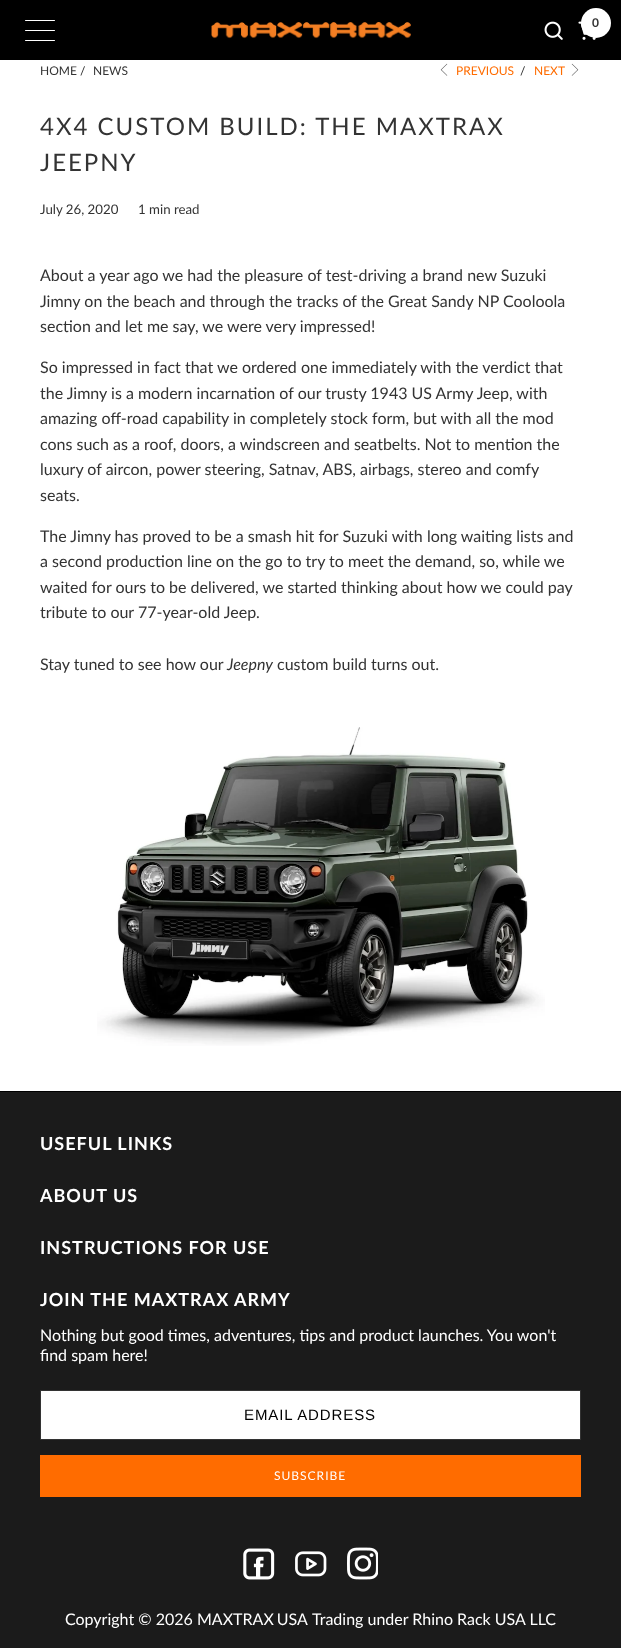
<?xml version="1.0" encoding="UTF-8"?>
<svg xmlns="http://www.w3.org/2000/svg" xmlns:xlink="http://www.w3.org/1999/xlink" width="621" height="1648">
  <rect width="100%" height="100%" fill="#ffffff" />
  <rect width="621" height="60" fill="#000000" />
  <rect x="25" y="20" width="30" height="1" rx="0.5" fill="#ffffff" />
  <rect x="25" y="30" width="30" height="1" rx="0.5" fill="#ffffff" />
  <rect x="25" y="40" width="30" height="1" rx="0.5" fill="#ffffff" />
  <image x="211" y="22" width="200" height="17" xlink:href="image1.png" />
  <image x="544" y="21" width="19" height="19" xlink:href="image2.png" />
  <image x="578" y="21" width="18" height="19" xlink:href="image3.png" />
  <circle cx="596" cy="23" r="15" fill="#ffffff" />
  <image x="440" y="63" width="8" height="13" xlink:href="image4.png" />
  <image x="571" y="63" width="8" height="13" xlink:href="image5.png" />
  <image x="97" y="727" width="448" height="319" xlink:href="image6.png" />
  <rect y="1092" width="621" height="556" fill="#1b1b1b" />
  <rect y="1091" width="621" height="1" fill="#000000" />
  <rect x="40.5" y="1390.5" width="540" height="49" fill="#ffffff" stroke="#333333" />
  <rect x="40" y="1455" width="541" height="42" fill="#ff6c00" />
  <image x="243" y="1548" width="32" height="32" xlink:href="image7.png" />
  <image x="295" y="1551" width="32" height="26" xlink:href="image8.png" />
  <image x="347" y="1547" width="31" height="33" xlink:href="image9.png" />
  <text x="592" y="27" style="font-family: Lato; font-size: 12px; font-weight: bold; letter-spacing: 1px; fill: #333333">0</text>
  <text x="40" y="75" style="font-family: Lato; font-size: 12px; fill: #333333">HOME</text>
  <text x="80" y="75" style="font-family: Lato; font-size: 12px; fill: #333333">/</text>
  <text x="93" y="75" style="font-family: Lato; font-size: 12px; fill: #333333">NEWS</text>
  <text x="456" y="75" style="font-family: Lato; font-size: 12px; fill: #ff6c00">PREVIOUS</text>
  <text x="520" y="75" style="font-family: Lato; font-size: 12px; fill: #333333">/</text>
  <text x="534" y="75" style="font-family: Lato; font-size: 12px; fill: #ff6c00">NEXT</text>
  <text x="40" y="135" style="font-family: Lato; font-size: 24px; letter-spacing: 2px; fill: #333333">4X4 CUSTOM BUILD: THE MAXTRAX</text>
  <text x="40" y="171" style="font-family: Lato; font-size: 24px; letter-spacing: 2px; fill: #333333">JEEPNY</text>
  <text x="40" y="214" style="font-family: Lato; font-size: 13.25px; fill: #333333">July 26, 2020</text>
  <text x="138" y="214" style="font-family: Lato; font-size: 13.25px; fill: #333333">1 min read</text>
  <text x="40" y="281" style="font-family: Lato; font-size: 16px; fill: #333333">About a year ago we had the pleasure of test-driving a brand new Suzuki</text>
  <text x="40" y="307" style="font-family: Lato; font-size: 16px; fill: #333333">Jimny on the beach and through the tracks of the Great Sandy NP Cooloola</text>
  <text x="40" y="332" style="font-family: Lato; font-size: 16px; fill: #333333">section and let me say, we were very impressed!</text>
  <text x="40" y="373" style="font-family: Lato; font-size: 16px; fill: #333333">So impressed in fact that we ordered one immediately with the verdict that</text>
  <text x="40" y="399" style="font-family: Lato; font-size: 16px; fill: #333333">the Jimny is a modern incarnation of our trusty 1943 US Army Jeep, with</text>
  <text x="40" y="424" style="font-family: Lato; font-size: 16px; fill: #333333">amazing off-road capability in completely stock form, but with all the mod</text>
  <text x="40" y="450" style="font-family: Lato; font-size: 16px; fill: #333333">cons such as a roof, doors, a windscreen and seatbelts. Not to mention the</text>
  <text x="40" y="475" style="font-family: Lato; font-size: 16px; fill: #333333">luxury of aircon, power steering, Satnav, ABS, airbags, stereo and comfy</text>
  <text x="40" y="501" style="font-family: Lato; font-size: 16px; fill: #333333">seats.</text>
  <text x="40" y="542" style="font-family: Lato; font-size: 16px; fill: #333333">The Jimny has proved to be a smash hit for Suzuki with long waiting lists and</text>
  <text x="40" y="567" style="font-family: Lato; font-size: 16px; fill: #333333">a second production line on the go to try to meet the demand, so, while we</text>
  <text x="40" y="593" style="font-family: Lato; font-size: 16px; fill: #333333">waited for ours to be delivered, we started thinking about how we could pay</text>
  <text x="40" y="618" style="font-family: Lato; font-size: 16px; fill: #333333">tribute to our 77-year-old Jeep.</text>
  <text x="40" y="670" style="font-family: Lato; font-size: 16px; fill: #333333">Stay tuned to see how our</text>
  <text x="227" y="670" style="font-family: Lato; font-size: 16px; font-style: italic; fill: #333333">Jeepny</text>
  <text x="277" y="670" style="font-family: Lato; font-size: 16px; fill: #333333">custom build turns out.</text>
  <text x="40" y="1150" style="font-family: Lato; font-size: 18px; font-weight: bold; letter-spacing: 1px; fill: #ffffff">USEFUL LINKS</text>
  <text x="40" y="1202" style="font-family: Lato; font-size: 18px; font-weight: bold; letter-spacing: 1px; fill: #ffffff">ABOUT US</text>
  <text x="40" y="1254" style="font-family: Lato; font-size: 18px; font-weight: bold; letter-spacing: 1px; fill: #ffffff">INSTRUCTIONS FOR USE</text>
  <text x="40" y="1306" style="font-family: Lato; font-size: 18px; font-weight: bold; letter-spacing: 1px; fill: #ffffff">JOIN THE MAXTRAX ARMY</text>
  <text x="40" y="1341" style="font-family: Lato; font-size: 16px; fill: #ffffff">Nothing but good times, adventures, tips and product launches. You won't</text>
  <text x="40" y="1361" style="font-family: Lato; font-size: 16px; fill: #ffffff">find spam here!</text>
  <text x="244" y="1420" style="font-family: Liberation Sans; font-size: 15px; letter-spacing: 0.9px; fill: #000000">EMAIL ADDRESS</text>
  <text x="274" y="1480" style="font-family: Lato; font-size: 12px; letter-spacing: 1px; fill: #ffffff">SUBSCRIBE</text>
  <text x="65" y="1625" style="font-family: Lato; font-size: 16px; fill: #ffffff">Copyright © 2026</text>
  <text x="197" y="1625" word-spacing="-1" style="font-family: Lato; font-size: 16px; fill: #ffffff">MAXTRAX USA</text>
  <text x="312" y="1625" style="font-family: Lato; font-size: 16px; fill: #ffffff">Trading under Rhino Rack USA LLC</text>
</svg>
